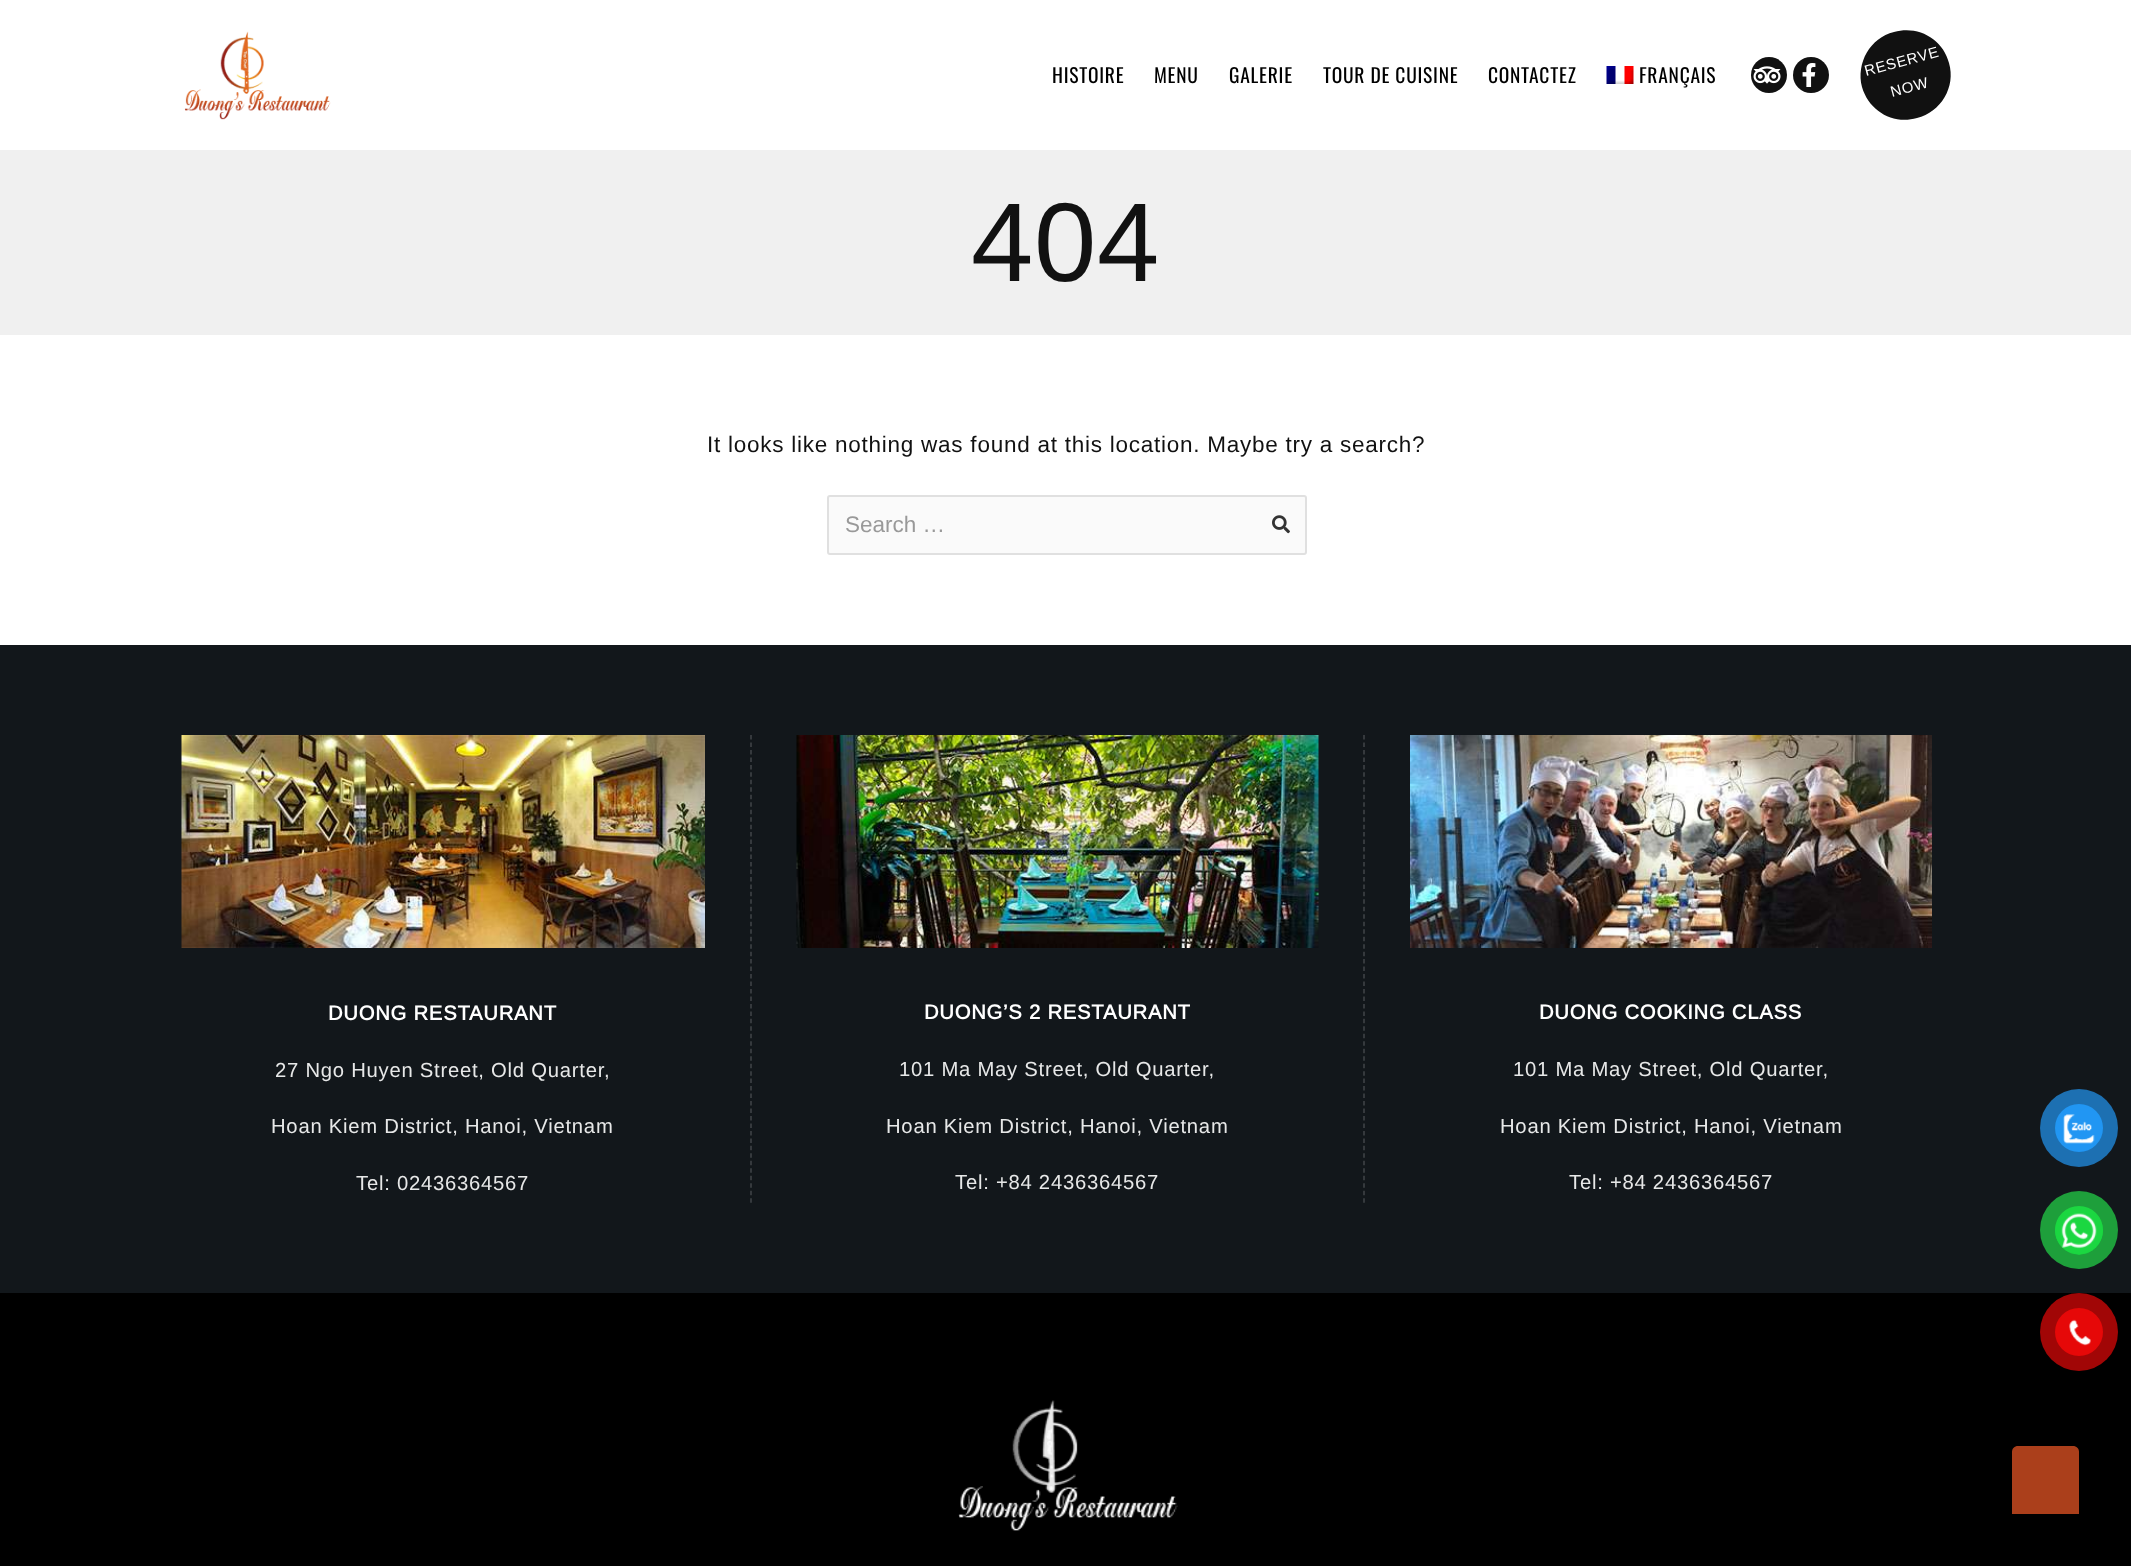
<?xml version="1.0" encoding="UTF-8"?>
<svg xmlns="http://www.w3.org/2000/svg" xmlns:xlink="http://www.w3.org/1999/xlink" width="2131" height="1566">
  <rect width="100%" height="100%" fill="#ffffff" />
  <image x="184" y="31" width="147" height="89" xlink:href="image1.png" />
  <image x="1606" y="66" width="28" height="18" xlink:href="image2.png" />
  <circle cx="1769" cy="75" r="18" fill="#111111" />
  <image x="1753" y="66" width="28" height="18" xlink:href="image3.png" />
  <circle cx="1811" cy="75" r="18" fill="#111111" />
  <image x="1802" y="63" width="14" height="24" xlink:href="image4.png" />
  <path d="M 1894 32 c 24 -7 49 7 55 31 c 7 24 -8 49 -32 55 c -24 7 -48 -7 -55 -31 c -6 -24 8 -49 32 -55 z" fill="#111111" />
  <rect y="150" width="2131" height="185" fill="#f0f0f0" />
  <rect x="828" y="496" width="478" height="58" rx="2" fill="#fafafa" stroke="#e0e0e0" stroke-width="2" />
  <image x="1272" y="515" width="18" height="19" xlink:href="image5.png" />
  <rect y="645" width="2131" height="648" fill="#12171b" />
  <image x="181" y="735" width="524" height="213" xlink:href="image6.png" />
  <path d="M 751 735 v 468" fill="none" stroke="#414549" stroke-width="1.5" stroke-dasharray="4.5 2.97" />
  <image x="796" y="735" width="523" height="213" xlink:href="image7.png" />
  <path d="M 1364 735 v 468" fill="none" stroke="#414549" stroke-width="1.5" stroke-dasharray="4.5 2.97" />
  <image x="1410" y="735" width="522" height="213" xlink:href="image8.png" />
  <rect y="1293" width="2131" height="273" fill="#000000" />
  <image x="958" y="1400" width="220" height="131" xlink:href="image9.png" />
  <circle cx="2079" cy="1128" r="39" fill="#1d70b2" />
  <circle cx="2079" cy="1128" r="24" fill="#2196f3" />
  <image x="2063" y="1114" width="32" height="30" xlink:href="image10.png" />
  <circle cx="2079" cy="1230" r="39" fill="#1e9f3b" />
  <circle cx="2079" cy="1230" r="24" fill="#1cd741" />
  <image x="2055" y="1213" width="48" height="42" xlink:href="image11.png" />
  <circle cx="2079" cy="1332" r="39" fill="#a10606" />
  <circle cx="2079" cy="1332" r="24" fill="#e60808" />
  <image x="2069" y="1319" width="22" height="27" xlink:href="image12.png" />
  <path d="M 2018 1446 h 55 c 3.5 0 6 2.5 6 6 v 62 h -67 v -62 c 0 -3.5 2.5 -6 6 -6 z" fill="#ab3f1b" />
  <text x="1052" y="83" style="font-family: Oswald; font-size: 19.5px; letter-spacing: 0.75px; fill: #000000">HISTOIRE</text>
  <text x="1154" y="83" style="font-family: Oswald; font-size: 19.5px; letter-spacing: 0.75px; fill: #000000">MENU</text>
  <text x="1229" y="83" style="font-family: Oswald; font-size: 19.5px; letter-spacing: 0.75px; fill: #000000">GALERIE</text>
  <text x="1323" y="83" style="font-family: Oswald; font-size: 19.5px; letter-spacing: 0.75px; fill: #000000">TOUR DE CUISINE</text>
  <text x="1488" y="83" style="font-family: Oswald; font-size: 19.5px; letter-spacing: 0.75px; fill: #000000">CONTACTEZ</text>
  <text x="1639" y="83" style="font-family: Oswald; font-size: 19.5px; letter-spacing: 0.75px; fill: #000000">FRANÇAIS</text>
  <text x="1866" y="76" transform="rotate(-15 1866 76)" style="font-family: Arimo; font-size: 15px; letter-spacing: 0.75px; fill: #ffffff">RESERVE</text>
  <text x="1892" y="97" transform="rotate(-15 1892 97)" style="font-family: Arimo; font-size: 15px; letter-spacing: 0.75px; fill: #ffffff">NOW</text>
  <text x="971" y="281" style="font-family: Arimo; font-size: 112px; letter-spacing: 0.75px; fill: #111111">404</text>
  <text x="707" y="452" style="font-family: Arimo; font-size: 22.5px; letter-spacing: 0.75px; fill: #111111">It looks like nothing was found at this location. Maybe try a search?</text>
  <text x="845" y="532" style="font-family: Arimo; font-size: 22.5px; fill: #999999">Search …</text>
  <text x="328" y="1020" style="font-family: Arimo; font-size: 20.25px; font-weight: bold; letter-spacing: 0.75px; fill: #ffffff">DUONG RESTAURANT</text>
  <text x="275" y="1077" style="font-family: Arimo; font-size: 20.25px; letter-spacing: 0.75px; fill: #e7e8e8">27 Ngo Huyen Street, Old Quarter,</text>
  <text x="271" y="1133" style="font-family: Arimo; font-size: 20.25px; letter-spacing: 0.75px; fill: #e7e8e8">Hoan Kiem District, Hanoi, Vietnam</text>
  <text x="356" y="1190" style="font-family: Arimo; font-size: 20.25px; letter-spacing: 0.75px; fill: #e7e8e8">Tel: 02436364567</text>
  <text x="924" y="1019" style="font-family: Arimo; font-size: 20.25px; font-weight: bold; letter-spacing: 0.75px; fill: #ffffff">DUONG’S 2 RESTAURANT</text>
  <text x="899" y="1076" style="font-family: Arimo; font-size: 20.25px; letter-spacing: 0.75px; fill: #e7e8e8">101 Ma May Street, Old Quarter,</text>
  <text x="886" y="1133" style="font-family: Arimo; font-size: 20.25px; letter-spacing: 0.75px; fill: #e7e8e8">Hoan Kiem District, Hanoi, Vietnam</text>
  <text x="955" y="1189" style="font-family: Arimo; font-size: 20.25px; letter-spacing: 0.75px; fill: #e7e8e8">Tel: +84 2436364567</text>
  <text x="1539" y="1019" style="font-family: Arimo; font-size: 20.25px; font-weight: bold; letter-spacing: 0.75px; fill: #ffffff">DUONG COOKING CLASS</text>
  <text x="1513" y="1076" style="font-family: Arimo; font-size: 20.25px; letter-spacing: 0.75px; fill: #e7e8e8">101 Ma May Street, Old Quarter,</text>
  <text x="1500" y="1133" style="font-family: Arimo; font-size: 20.25px; letter-spacing: 0.75px; fill: #e7e8e8">Hoan Kiem District, Hanoi, Vietnam</text>
  <text x="1569" y="1189" style="font-family: Arimo; font-size: 20.25px; letter-spacing: 0.75px; fill: #e7e8e8">Tel: +84 2436364567</text>
</svg>
